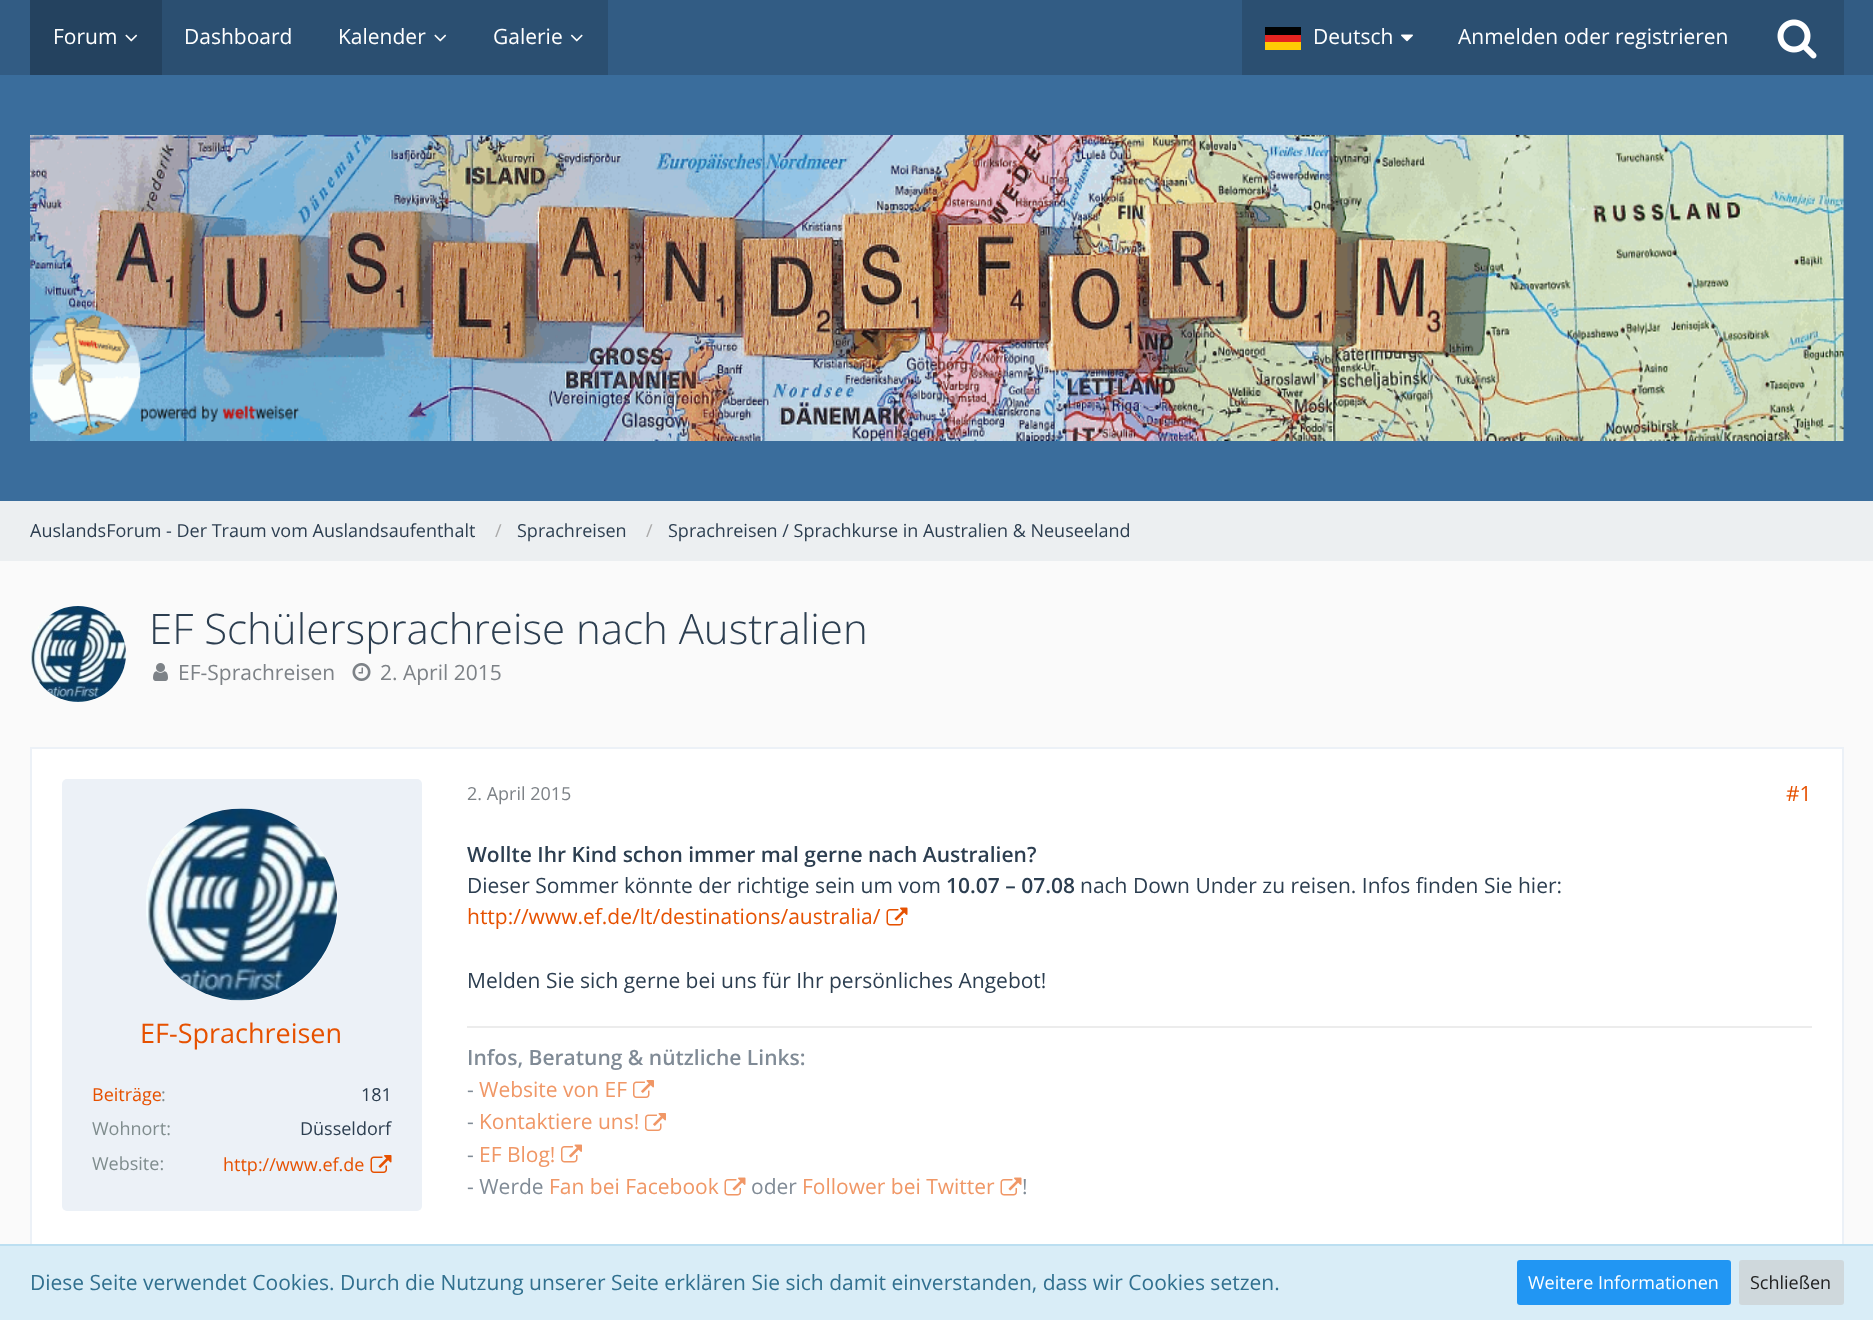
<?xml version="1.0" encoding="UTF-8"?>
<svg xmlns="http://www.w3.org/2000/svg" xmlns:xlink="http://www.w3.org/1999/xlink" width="1873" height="1320">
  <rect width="100%" height="100%" fill="#fafafa" />
  <rect y="75" width="1873" height="426" fill="#3a6d9c" />
  <rect width="1873" height="75" fill="#325c84" />
  <rect x="30" width="132" height="75" fill="#24425f" />
  <image x="125" y="34" width="13" height="8" xlink:href="image1.png" />
  <rect x="162" width="446" height="75" fill="#2b4f71" />
  <image x="434" y="34" width="13" height="8" xlink:href="image2.png" />
  <image x="570" y="34" width="13" height="8" xlink:href="image3.png" />
  <rect x="1242" width="602" height="75" fill="#2b4f71" />
  <rect x="1265" y="27" width="36" height="8" fill="#010202" />
  <rect x="1265" y="42" width="36" height="8" fill="#ffcc04" />
  <rect x="1265" y="35" width="36" height="7" fill="#e52420" />
  <image x="1401" y="34" width="12" height="8" xlink:href="image4.png" />
  <image x="1777" y="19" width="40" height="40" xlink:href="image5.png" />
  <image x="30" y="135" width="1814" height="306" xlink:href="image6.png" />
  <rect y="501" width="1873" height="60" fill="#eceff1" />
  <circle cx="78" cy="654" r="48" fill="#ffffff" />
  <image x="30" y="606" width="96" height="96" xlink:href="image7.png" />
  <image x="153" y="663" width="15" height="18" xlink:href="image8.png" />
  <image x="352" y="663" width="19" height="18" xlink:href="image9.png" />
  <rect x="32" y="749" width="1810" height="495" fill="#ffffff" />
  <rect x="31" y="748" width="1812" height="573" fill="none" stroke="#ecf1f7" stroke-width="2" />
  <rect x="62" y="779" width="360" height="432" rx="5" fill="#ecf1f7" />
  <circle cx="242" cy="905" r="96" fill="#ffffff" />
  <image x="146" y="808" width="192" height="193" xlink:href="image10.png" />
  <image x="370" y="1155" width="22" height="18" xlink:href="image11.png" />
  <image x="886" y="907" width="22" height="19" xlink:href="image12.png" />
  <rect x="467" y="1026" width="1345" height="2" fill="#ececec" />
  <image x="633" y="1080" width="21" height="18" xlink:href="image13.png" />
  <image x="645" y="1113" width="21" height="18" xlink:href="image13.png" />
  <image x="561" y="1144" width="21" height="19" xlink:href="image14.png" />
  <image x="724" y="1177" width="22" height="19" xlink:href="image15.png" />
  <image x="1000" y="1177" width="22" height="19" xlink:href="image15.png" />
  <rect y="1246" width="1873" height="74" fill="#d9edf7" />
  <rect y="1244" width="1873" height="2" fill="#bcdff1" />
  <rect x="1517" y="1260" width="214" height="45" rx="3" fill="#2196f3" />
  <rect x="1739" y="1260" width="105" height="45" rx="3" fill="#cfd8dc" />
  <text x="53" y="44" style="font-family: Open Sans; font-size: 21px; fill: #ffffff">Forum</text>
  <text x="184" y="44" style="font-family: Open Sans; font-size: 21px; fill: #ffffff">Dashboard</text>
  <text x="338" y="44" style="font-family: Open Sans; font-size: 21px; fill: #ffffff">Kalender</text>
  <text x="493" y="44" style="font-family: Open Sans; font-size: 21px; fill: #ffffff">Galerie</text>
  <text x="1313" y="44" style="font-family: Open Sans; font-size: 21px; fill: #ffffff">Deutsch</text>
  <text x="1458" y="44" style="font-family: Open Sans; font-size: 21px; fill: #ffffff">Anmelden oder registrieren</text>
  <text x="30" y="537" style="font-family: Open Sans; font-size: 18px; fill: #2c3e50">AuslandsForum - Der Traum vom Auslandsaufenthalt</text>
  <text x="495" y="537" style="font-family: Open Sans; font-size: 18px; fill: #aaaaaa">/</text>
  <text x="517" y="537" style="font-family: Open Sans; font-size: 18px; fill: #2c3e50">Sprachreisen</text>
  <text x="646" y="537" style="font-family: Open Sans; font-size: 18px; fill: #aaaaaa">/</text>
  <text x="668" y="537" style="font-family: Open Sans; font-size: 18px; fill: #2c3e50">Sprachreisen / Sprachkurse in Australien &amp; Neuseeland</text>
  <text x="149" y="644" style="font-family: Open Sans; font-size: 42px; font-weight: 300; fill: #2c3e50">EF Schülersprachreise nach Australien</text>
  <text x="178" y="680" style="font-family: Open Sans; font-size: 21px; fill: #7d8287">EF-Sprachreisen</text>
  <text x="380" y="680" style="font-family: Open Sans; font-size: 21px; fill: #7d8287">2. April 2015</text>
  <text x="140" y="1043" style="font-family: Open Sans; font-size: 27px; fill: #e65100">EF-Sprachreisen</text>
  <text x="92" y="1101" style="font-family: Open Sans; font-size: 18px; fill: #e65100">Beiträge</text>
  <text x="161" y="1101" style="font-family: Open Sans; font-size: 18px; fill: #7f8c8d">:</text>
  <text x="361" y="1101" style="font-family: Open Sans; font-size: 18px; fill: #2c3e50">181</text>
  <text x="92" y="1135" style="font-family: Open Sans; font-size: 18px; fill: #7f8c8d">Wohnort:</text>
  <text x="300" y="1135" style="font-family: Open Sans; font-size: 18px; fill: #2c3e50">Düsseldorf</text>
  <text x="92" y="1170" style="font-family: Open Sans; font-size: 18px; fill: #7f8c8d">Website:</text>
  <text x="223" y="1171" style="font-family: Open Sans; font-size: 18px; fill: #e65100">http://www.ef.de</text>
  <text x="467" y="800" style="font-family: Open Sans; font-size: 18px; fill: #7d8287">2. April 2015</text>
  <text x="1786" y="801" style="font-family: Open Sans; font-size: 21px; fill: #e65100">#1</text>
  <text x="467" y="862" style="font-family: Open Sans; font-size: 21px; font-weight: 600; fill: #2c3e50">Wollte Ihr Kind schon immer mal gerne nach Australien?</text>
  <text x="467" y="893" style="font-family: Open Sans; font-size: 21px; fill: #2c3e50">Dieser Sommer könnte der richtige sein um vom</text>
  <text x="946" y="893" style="font-family: Open Sans; font-size: 21px; font-weight: 600; fill: #2c3e50">10.07 – 07.08</text>
  <text x="1080" y="893" style="font-family: Open Sans; font-size: 21px; fill: #2c3e50">nach Down Under zu reisen. Infos finden Sie hier:</text>
  <text x="467" y="924" style="font-family: Open Sans; font-size: 21px; fill: #e65100">http://www.ef.de/lt/destinations/australia/</text>
  <text x="467" y="988" style="font-family: Open Sans; font-size: 21px; fill: #2c3e50">Melden Sie sich gerne bei uns für Ihr persönliches Angebot!</text>
  <text x="467" y="1065" style="font-family: Open Sans; font-size: 21px; font-weight: 600; fill: #808b96">Infos, Beratung &amp; nützliche Links:</text>
  <text x="467" y="1097" style="font-family: Open Sans; font-size: 21px; fill: #808b96">-</text>
  <text x="479" y="1097" style="font-family: Open Sans; font-size: 21px; fill: #f09766">Website von EF</text>
  <text x="467" y="1129" style="font-family: Open Sans; font-size: 21px; fill: #808b96">-</text>
  <text x="479" y="1129" style="font-family: Open Sans; font-size: 21px; fill: #f09766">Kontaktiere uns!</text>
  <text x="467" y="1162" style="font-family: Open Sans; font-size: 21px; fill: #808b96">-</text>
  <text x="479" y="1162" style="font-family: Open Sans; font-size: 21px; fill: #f09766">EF Blog!</text>
  <text x="467" y="1194" style="font-family: Open Sans; font-size: 21px; fill: #808b96">- Werde</text>
  <text x="549" y="1194" style="font-family: Open Sans; font-size: 21px; fill: #f09766">Fan bei Facebook</text>
  <text x="751" y="1194" style="font-family: Open Sans; font-size: 21px; fill: #808b96">oder</text>
  <text x="802" y="1194" style="font-family: Open Sans; font-size: 21px; fill: #f09766">Follower bei Twitter</text>
  <text x="1022" y="1194" style="font-family: Open Sans; font-size: 21px; fill: #808b96">!</text>
  <text x="30" y="1290" style="font-family: Open Sans; font-size: 21px; fill: #31708f">Diese Seite verwendet Cookies. Durch die Nutzung unserer Seite erklären Sie sich damit einverstanden, dass wir Cookies setzen.</text>
  <text x="1528" y="1289" style="font-family: Open Sans; font-size: 18px; fill: #ffffff">Weitere Informationen</text>
  <text x="1750" y="1289" style="font-family: Open Sans; font-size: 18px; fill: #212121">Schließen</text>
</svg>
